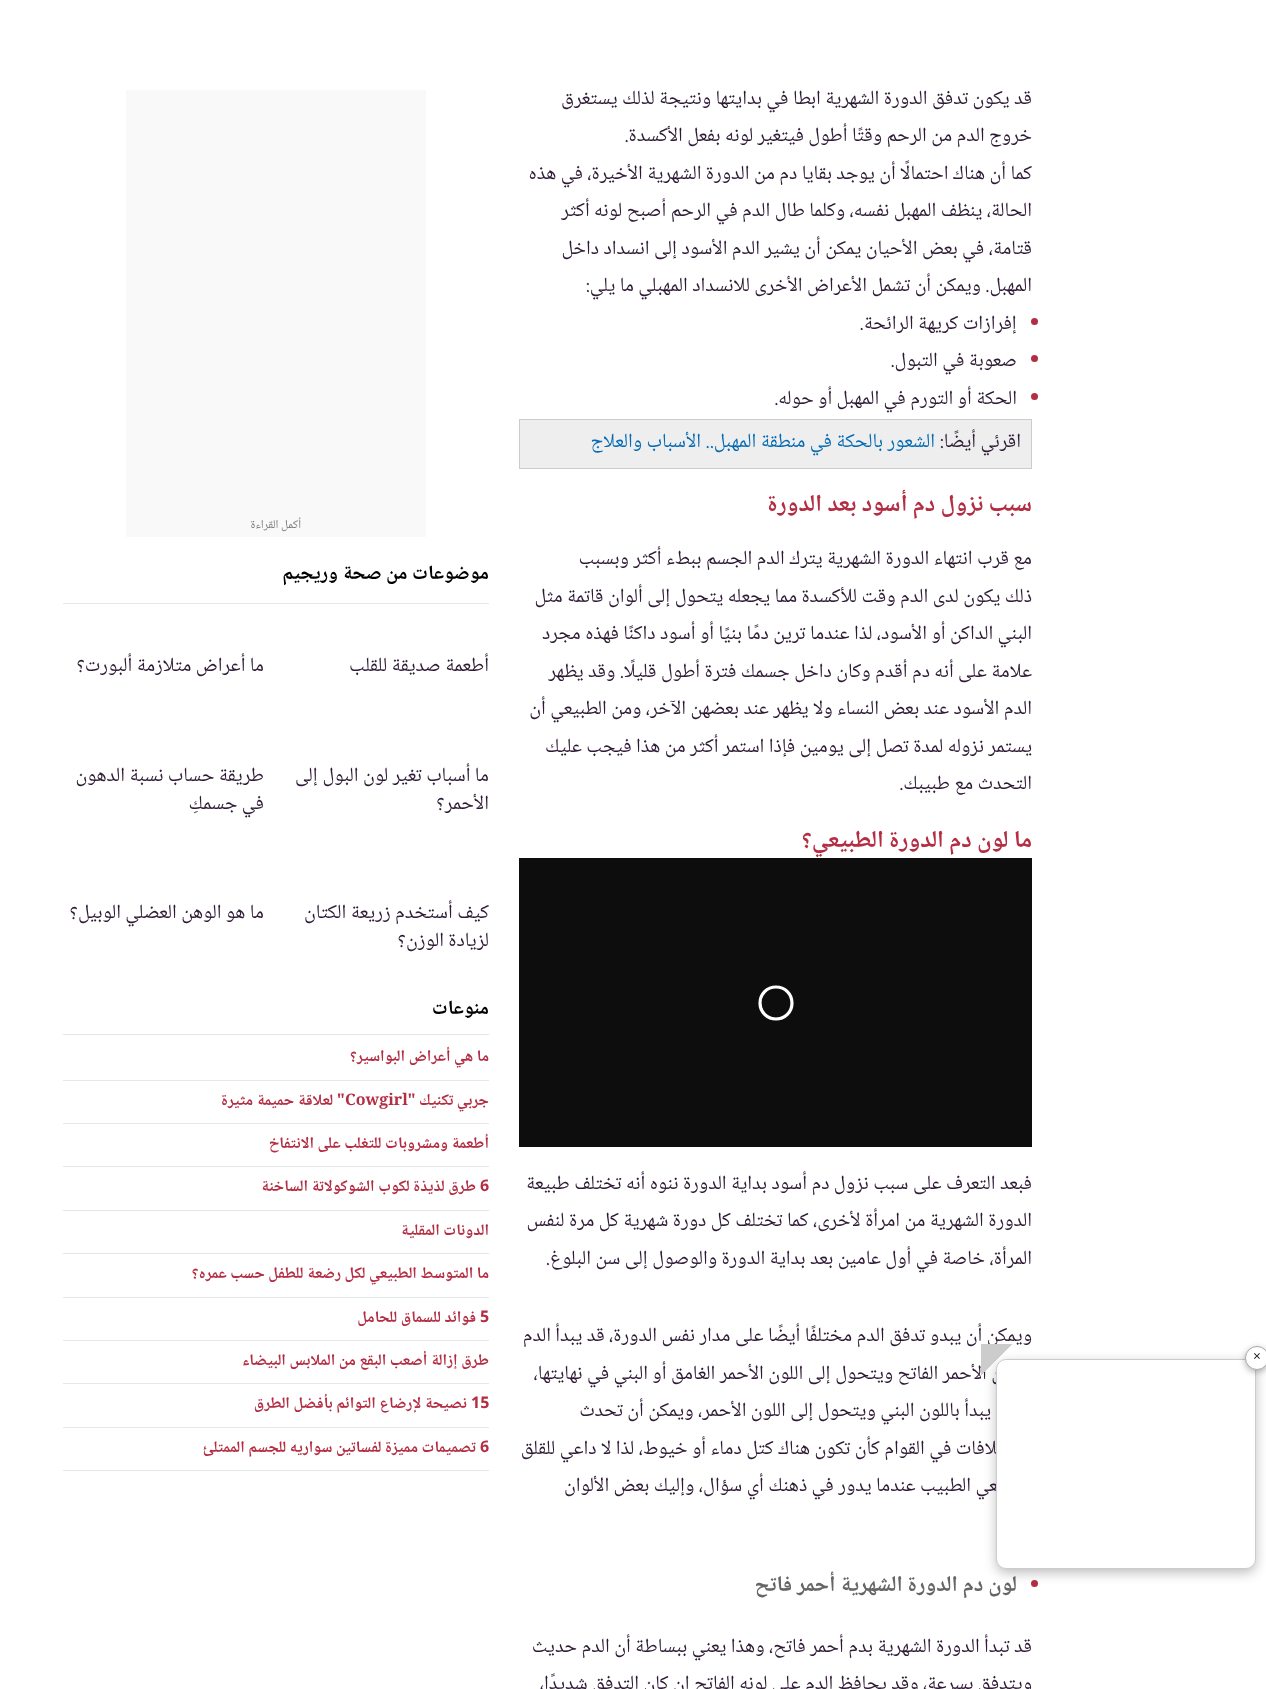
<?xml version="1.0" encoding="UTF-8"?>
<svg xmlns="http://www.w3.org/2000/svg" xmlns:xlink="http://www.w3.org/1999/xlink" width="1266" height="1689">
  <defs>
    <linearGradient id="g1" gradientUnits="userSpaceOnUse" x1="981" y1="1344" x2="1013" y2="1376"><stop offset="0.5" stop-color="#cccccc" /><stop offset="0.5" stop-color="#cccccc" stop-opacity="0" /></linearGradient>
  </defs>
  <rect width="100%" height="100%" fill="#ffffff" />
  <circle cx="1034.5" cy="1583.5" r="3.5" fill="#b32d43" />
  <rect x="996" y="1363" width="260" height="210" rx="10" fill="#000000" fill-opacity="0.25" filter="blur(6px)" />
  <circle cx="1034.5" cy="321.5" r="3.5" fill="#b32d43" />
  <circle cx="1034.5" cy="358.5" r="3.5" fill="#b32d43" />
  <circle cx="1034.5" cy="396.5" r="3.5" fill="#b32d43" />
  <rect x="519.5" y="419.5" width="512" height="49" fill="#eeeeee" stroke="#cccccc" />
  <rect x="519" y="858" width="513" height="289" fill="#0d0d0d" />
  <path d="M 760 1003 c 0 -9 7 -16 16 -16 c 9 0 16 7 16 16 c 0 9 -7 16 -16 16 c -9 0 -16 -7 -16 -16" fill="none" stroke="#ffffff" stroke-width="3.2" />
  <rect x="126" y="90" width="300" height="447" fill="#f9f9f9" />
  <rect x="63" y="603" width="426" height="1" fill="#e5e7eb" />
  <rect x="63" y="1034" width="426" height="1" fill="#e5e7eb" />
  <rect x="63" y="1080" width="426" height="1" fill="#e5e7eb" />
  <rect x="63" y="1123" width="426" height="1" fill="#e5e7eb" />
  <rect x="63" y="1166" width="426" height="1" fill="#e5e7eb" />
  <rect x="63" y="1210" width="426" height="1" fill="#e5e7eb" />
  <rect x="63" y="1253" width="426" height="1" fill="#e5e7eb" />
  <rect x="63" y="1297" width="426" height="1" fill="#e5e7eb" />
  <rect x="63" y="1340" width="426" height="1" fill="#e5e7eb" />
  <rect x="63" y="1383" width="426" height="1" fill="#e5e7eb" />
  <rect x="63" y="1427" width="426" height="1" fill="#e5e7eb" />
  <rect x="63" y="1470" width="426" height="1" fill="#e5e7eb" />
  <text x="1032" y="104" style="font-family: Noto Naskh Arabic; font-size: 20px; direction: rtl; fill: #2e1a35">قد يكون تدفق الدورة الشهرية أبطأ في بدايتها ونتيجة لذلك يستغرق</text>
  <text x="1032" y="141" style="font-family: Noto Naskh Arabic; font-size: 20px; direction: rtl; fill: #2e1a35">خروج الدم من الرحم وقتًا أطول فيتغير لونه بفعل الأكسدة.</text>
  <text x="1032" y="179" style="font-family: Noto Naskh Arabic; font-size: 20px; direction: rtl; fill: #2e1a35">كما أن هناك احتمالًا أن يوجد بقايا دم من الدورة الشهرية الأخيرة، في هذه</text>
  <text x="1032" y="216" style="font-family: Noto Naskh Arabic; font-size: 20px; direction: rtl; fill: #2e1a35">الحالة، ينظف المهبل نفسه، وكلما طال الدم في الرحم أصبح لونه أكثر</text>
  <text x="1032" y="254" style="font-family: Noto Naskh Arabic; font-size: 20px; direction: rtl; fill: #2e1a35">قتامة، في بعض الأحيان يمكن أن يشير الدم الأسود إلى انسداد داخل</text>
  <text x="1032" y="291" style="font-family: Noto Naskh Arabic; font-size: 20px; direction: rtl; fill: #2e1a35">المهبل. ويمكن أن تشمل الأعراض الأخرى للانسداد المهبلي ما يلي:</text>
  <text x="1017" y="329" style="font-family: Noto Naskh Arabic; font-size: 20px; direction: rtl; fill: #2e1a35">إفرازات كريهة الرائحة.</text>
  <text x="1017" y="366" style="font-family: Noto Naskh Arabic; font-size: 20px; direction: rtl; fill: #2e1a35">صعوبة في التبول.</text>
  <text x="1017" y="404" style="font-family: Noto Naskh Arabic; font-size: 20px; direction: rtl; fill: #2e1a35">الحكة أو التورم في المهبل أو حوله.</text>
  <text x="1021" y="447" style="font-family: Noto Naskh Arabic; font-size: 20px; direction: rtl; fill: #2e1a35">اقرئي أيضًا:</text>
  <text x="935" y="447" style="font-family: Noto Naskh Arabic; font-size: 20px; direction: rtl; fill: #046ab4">الشعور بالحكة في منطقة المهبل.. الأسباب والعلاج</text>
  <text x="1032" y="511" style="font-family: Noto Naskh Arabic; font-size: 24px; font-weight: bold; direction: rtl; fill: #b32d43">سبب نزول دم أسود بعد الدورة</text>
  <text x="1032" y="564" style="font-family: Noto Naskh Arabic; font-size: 20px; direction: rtl; fill: #2e1a35">مع قرب انتهاء الدورة الشهرية يترك الدم الجسم ببطء أكثر وبسبب</text>
  <text x="1032" y="602" style="font-family: Noto Naskh Arabic; font-size: 20px; direction: rtl; fill: #2e1a35">ذلك يكون لدى الدم وقت للأكسدة مما يجعله يتحول إلى ألوان قاتمة مثل</text>
  <text x="1032" y="639" style="font-family: Noto Naskh Arabic; font-size: 20px; direction: rtl; fill: #2e1a35">البني الداكن أو الأسود، لذا عندما ترين دمًا بنيًا أو أسود داكنًا فهذه مجرد</text>
  <text x="1032" y="677" style="font-family: Noto Naskh Arabic; font-size: 20px; direction: rtl; fill: #2e1a35">علامة على أنه دم أقدم وكان داخل جسمك فترة أطول قليلًا. وقد يظهر</text>
  <text x="1032" y="714" style="font-family: Noto Naskh Arabic; font-size: 20px; direction: rtl; fill: #2e1a35">الدم الأسود عند بعض النساء ولا يظهر عند بعضهن الآخر، ومن الطبيعي أن</text>
  <text x="1032" y="752" style="font-family: Noto Naskh Arabic; font-size: 20px; direction: rtl; fill: #2e1a35">يستمر نزوله لمدة تصل إلى يومين فإذا استمر أكثر من هذا فيجب عليك</text>
  <text x="1032" y="789" style="font-family: Noto Naskh Arabic; font-size: 20px; direction: rtl; fill: #2e1a35">التحدث مع طبيبك.</text>
  <text x="1032" y="847" style="font-family: Noto Naskh Arabic; font-size: 24px; font-weight: bold; direction: rtl; fill: #b32d43">ما لون دم الدورة الطبيعي؟</text>
  <text x="1032" y="1189" style="font-family: Noto Naskh Arabic; font-size: 20px; direction: rtl; fill: #2e1a35">فبعد التعرف على سبب نزول دم أسود بداية الدورة ننوه أنه تختلف طبيعة</text>
  <text x="1032" y="1226" style="font-family: Noto Naskh Arabic; font-size: 20px; direction: rtl; fill: #2e1a35">الدورة الشهرية من امرأة لأخرى، كما تختلف كل دورة شهرية كل مرة لنفس</text>
  <text x="1032" y="1264" style="font-family: Noto Naskh Arabic; font-size: 20px; direction: rtl; fill: #2e1a35">المرأة، خاصة في أول عامين بعد بداية الدورة والوصول إلى سن البلوغ.</text>
  <text x="1032" y="1341" style="font-family: Noto Naskh Arabic; font-size: 20px; direction: rtl; fill: #2e1a35">ويمكن أن يبدو تدفق الدم مختلفًا أيضًا على مدار نفس الدورة، قد يبدأ الدم</text>
  <text x="1032" y="1379" style="font-family: Noto Naskh Arabic; font-size: 20px; direction: rtl; fill: #2e1a35">باللون الأحمر الفاتح ويتحول إلى اللون الأحمر الغامق أو البني في نهايتها،</text>
  <text x="1032" y="1416" style="font-family: Noto Naskh Arabic; font-size: 20px; direction: rtl; fill: #2e1a35">أو قد يبدأ باللون البني ويتحول إلى اللون الأحمر، ويمكن أن تحدث</text>
  <text x="1032" y="1454" style="font-family: Noto Naskh Arabic; font-size: 20px; direction: rtl; fill: #2e1a35">الاختلافات في القوام كأن تكون هناك كتل دماء أو خيوط، لذا لا داعي للقلق</text>
  <text x="1032" y="1491" style="font-family: Noto Naskh Arabic; font-size: 20px; direction: rtl; fill: #2e1a35">وراجعي الطبيب عندما يدور في ذهنك أي سؤال، وإليك بعض الألوان</text>
  <rect x="996.5" y="1359.5" width="259" height="209" rx="9.5" fill="#ffffff" stroke="#cccccc" />
  <rect x="1245" y="1348" width="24" height="24" rx="12" fill="#000000" fill-opacity="0.3" filter="blur(3px)" />
  <circle cx="1257" cy="1358" r="11.5" fill="#ffffff" stroke="#aaaaaa" />
  <text x="1253" y="1361" style="font-family: Noto Naskh Arabic; font-size: 14px; fill: #000000">×</text>
  <rect x="981" y="1344" width="31" height="31" fill="url(#g1)" />
  <text x="1017" y="1591" style="font-family: Noto Naskh Arabic; font-size: 22px; font-weight: bold; direction: rtl; fill: #666666">لون دم الدورة الشهرية أحمر فاتح</text>
  <text x="1032" y="1652" style="font-family: Noto Naskh Arabic; font-size: 20px; direction: rtl; fill: #2e1a35">قد تبدأ الدورة الشهرية بدم أحمر فاتح، وهذا يعني ببساطة أن الدم حديث</text>
  <text x="1032" y="1689" style="font-family: Noto Naskh Arabic; font-size: 20px; direction: rtl; fill: #2e1a35">ويتدفق بسرعة، وقد يحافظ الدم على لونه الفاتح إن كان التدفق شديدًا،</text>
  <text x="301" y="528" style="font-family: Noto Naskh Arabic; font-size: 12px; direction: rtl; fill: #7c7b7b">أكمل القراءة</text>
  <text x="489" y="579" style="font-family: Noto Naskh Arabic; font-size: 20px; font-weight: bold; direction: rtl; fill: #000000">موضوعات من صحة وريجيم</text>
  <text x="489" y="671" style="font-family: Noto Naskh Arabic; font-size: 20px; direction: rtl; fill: #2e1a35">أطعمة صديقة للقلب</text>
  <text x="264" y="671" style="font-family: Noto Naskh Arabic; font-size: 20px; direction: rtl; fill: #2e1a35">ما أعراض متلازمة ألبورت؟</text>
  <text x="489" y="781" style="font-family: Noto Naskh Arabic; font-size: 20px; direction: rtl; fill: #2e1a35">ما أسباب تغير لون البول إلى</text>
  <text x="489" y="809" style="font-family: Noto Naskh Arabic; font-size: 20px; direction: rtl; fill: #2e1a35">الأحمر؟</text>
  <text x="264" y="781" style="font-family: Noto Naskh Arabic; font-size: 20px; direction: rtl; fill: #2e1a35">طريقة حساب نسبة الدهون</text>
  <text x="264" y="809" style="font-family: Noto Naskh Arabic; font-size: 20px; direction: rtl; fill: #2e1a35">في جسمكِ</text>
  <text x="489" y="918" style="font-family: Noto Naskh Arabic; font-size: 20px; direction: rtl; fill: #2e1a35">كيف أستخدم زريعة الكتان</text>
  <text x="489" y="946" style="font-family: Noto Naskh Arabic; font-size: 20px; direction: rtl; fill: #2e1a35">لزيادة الوزن؟</text>
  <text x="264" y="918" style="font-family: Noto Naskh Arabic; font-size: 20px; direction: rtl; fill: #2e1a35">ما هو الوهن العضلي الوبيل؟</text>
  <text x="489" y="1014" style="font-family: Noto Naskh Arabic; font-size: 20px; font-weight: bold; direction: rtl; fill: #000000">منوعات</text>
  <text x="489" y="1061" style="font-family: Noto Naskh Arabic; font-size: 16px; font-weight: bold; direction: rtl; fill: #b32d43">ما هي أعراض البواسير؟</text>
  <text x="489" y="1105" style="font-family: Noto Naskh Arabic; font-size: 16px; font-weight: bold; direction: rtl; fill: #b32d43">جربي تكنيك "</text>
  <text x="345" y="1105" style="font-family: Noto Naskh Arabic; font-size: 16px; font-weight: bold; fill: #b32d43">Cowgirl</text>
  <text x="345" y="1105" style="font-family: Noto Naskh Arabic; font-size: 16px; font-weight: bold; direction: rtl; fill: #b32d43">" لعلاقة حميمة مثيرة</text>
  <text x="489" y="1148" style="font-family: Noto Naskh Arabic; font-size: 16px; font-weight: bold; direction: rtl; fill: #b32d43">أطعمة ومشروبات للتغلب على الانتفاخ</text>
  <text x="480" y="1191" style="font-family: Noto Naskh Arabic; font-size: 16px; font-weight: bold; fill: #b32d43">6</text>
  <text x="476" y="1191" style="font-family: Noto Naskh Arabic; font-size: 16px; font-weight: bold; direction: rtl; fill: #b32d43">طرق لذيذة لكوب الشوكولاتة الساخنة</text>
  <text x="489" y="1235" style="font-family: Noto Naskh Arabic; font-size: 16px; font-weight: bold; direction: rtl; fill: #b32d43">الدونات المقلية</text>
  <text x="489" y="1278" style="font-family: Noto Naskh Arabic; font-size: 16px; font-weight: bold; direction: rtl; fill: #b32d43">ما المتوسط الطبيعي لكل رضعة للطفل حسب عمره؟</text>
  <text x="480" y="1322" style="font-family: Noto Naskh Arabic; font-size: 16px; font-weight: bold; fill: #b32d43">5</text>
  <text x="476" y="1322" style="font-family: Noto Naskh Arabic; font-size: 16px; font-weight: bold; direction: rtl; fill: #b32d43">فوائد للسماق للحامل</text>
  <text x="489" y="1365" style="font-family: Noto Naskh Arabic; font-size: 16px; font-weight: bold; direction: rtl; fill: #b32d43">طرق إزالة أصعب البقع من الملابس البيضاء</text>
  <text x="471" y="1408" style="font-family: Noto Naskh Arabic; font-size: 16px; font-weight: bold; fill: #b32d43">15</text>
  <text x="467" y="1408" style="font-family: Noto Naskh Arabic; font-size: 16px; font-weight: bold; direction: rtl; fill: #b32d43">نصيحة لإرضاع التوائم بأفضل الطرق</text>
  <text x="480" y="1452" style="font-family: Noto Naskh Arabic; font-size: 16px; font-weight: bold; fill: #b32d43">6</text>
  <text x="476" y="1452" style="font-family: Noto Naskh Arabic; font-size: 16px; font-weight: bold; direction: rtl; fill: #b32d43">تصميمات مميزة لفساتين سواريه للجسم الممتلئ</text>
  <rect x="793" y="86" width="27" height="4" fill="#ffffff" />
</svg>
